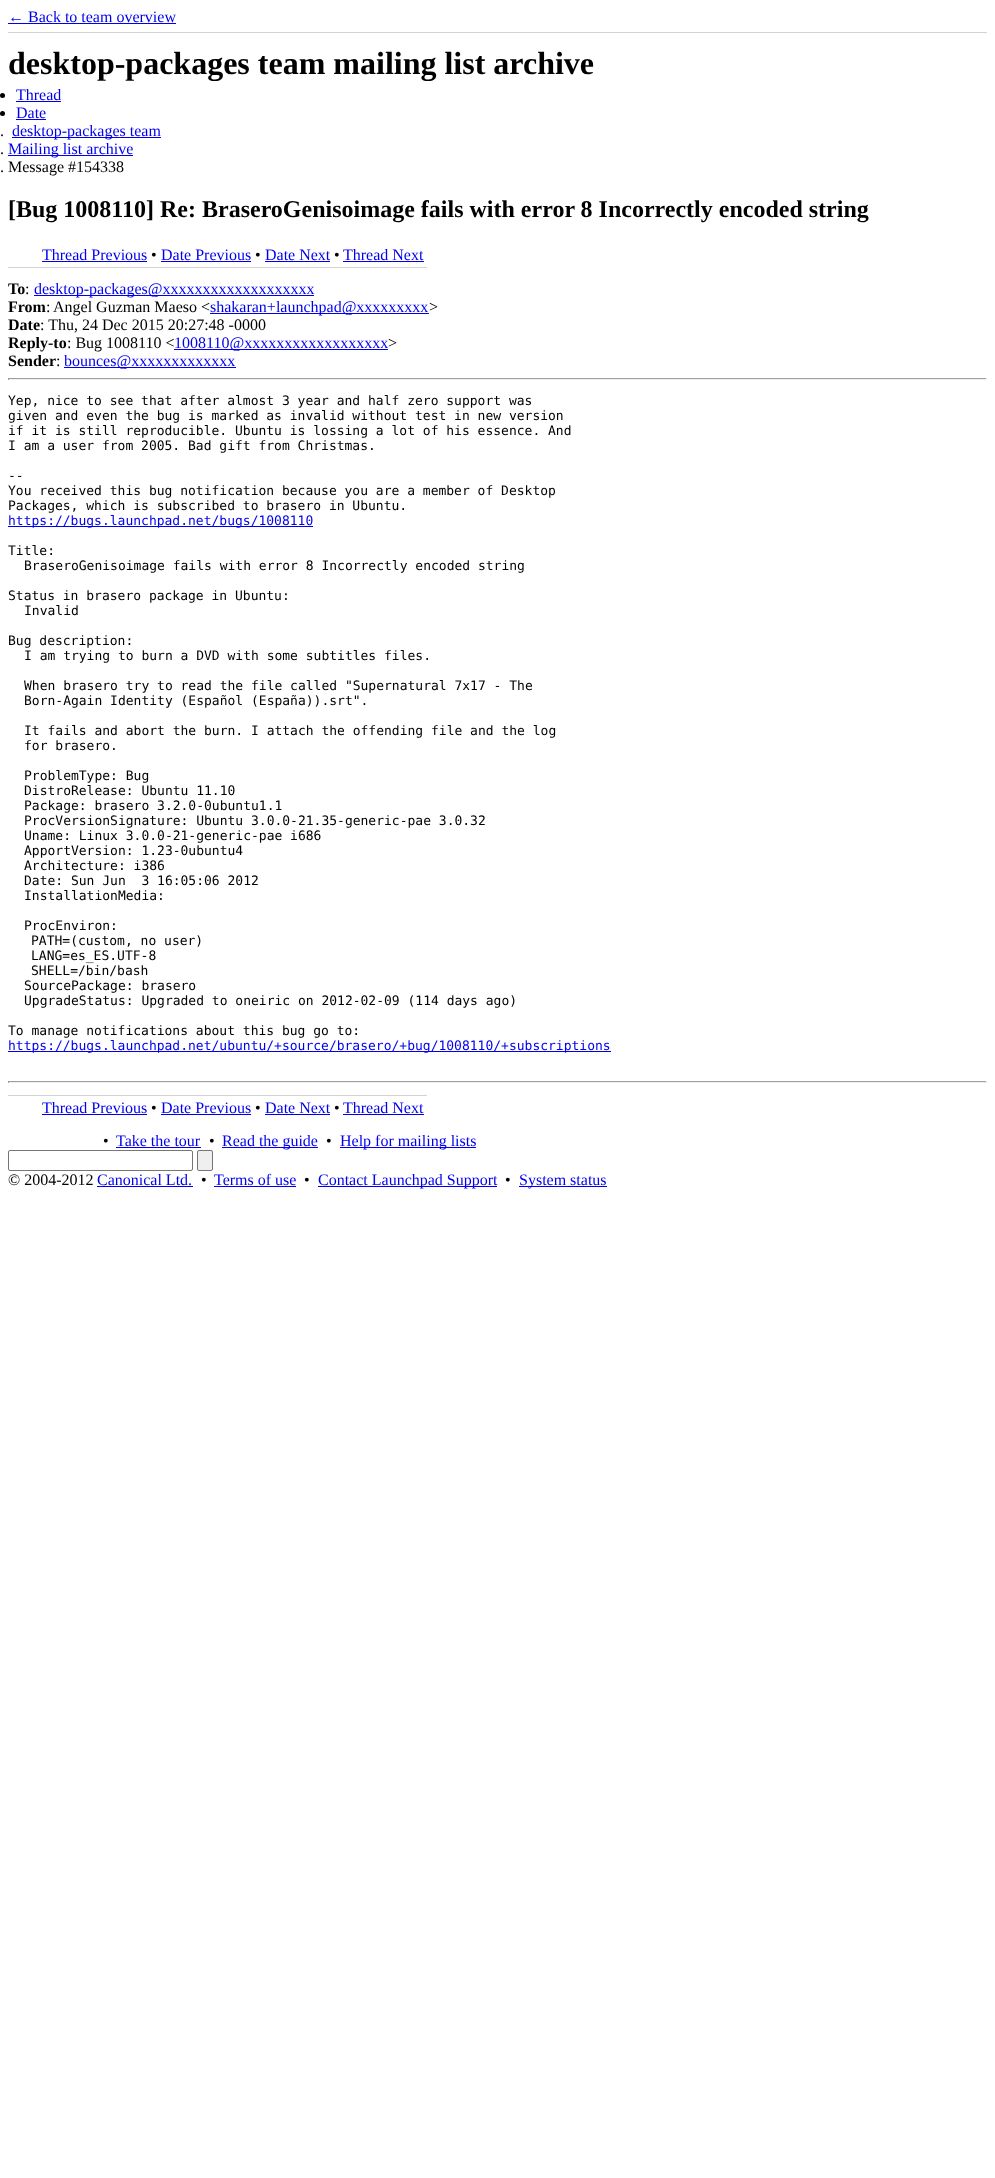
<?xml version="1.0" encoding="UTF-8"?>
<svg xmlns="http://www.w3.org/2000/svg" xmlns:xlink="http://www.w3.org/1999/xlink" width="995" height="2178">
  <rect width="100%" height="100%" fill="#ffffff" />
  <rect x="8" y="32" width="979" height="1" fill="#d2d2d2" />
  <rect x="8" y="23" width="168" height="1" fill="#0000ee" />
  <circle cx="2.5" cy="95.5" r="2.5" fill="#000000" />
  <rect x="16" y="101" width="45" height="1" fill="#0000ee" />
  <circle cx="2.5" cy="113.5" r="2.5" fill="#000000" />
  <rect x="16" y="119" width="30" height="1" fill="#0000ee" />
  <rect x="12" y="137" width="149" height="1" fill="#0000ee" />
  <rect x="8" y="155" width="125" height="1" fill="#0000ee" />
  <rect x="8" y="267" width="419" height="1" fill="#d2d2d2" />
  <rect x="42" y="261" width="105" height="1" fill="#0000ee" />
  <rect x="161" y="261" width="90" height="1" fill="#0000ee" />
  <rect x="265" y="261" width="65" height="1" fill="#0000ee" />
  <rect x="343" y="261" width="81" height="1" fill="#0000ee" />
  <rect x="34" y="295" width="280" height="1" fill="#0000ee" />
  <rect x="210" y="313" width="219" height="1" fill="#0000ee" />
  <rect x="174" y="349" width="214" height="1" fill="#0000ee" />
  <rect x="64" y="367" width="172" height="1" fill="#0000ee" />
  <rect x="8" y="378" width="979" height="1" fill="#9f9f9f" />
  <rect x="986" y="378" width="1" height="2" fill="#eeeeee" />
  <rect x="8" y="379" width="979" height="1" fill="#eeeeee" />
  <rect x="8" y="378" width="1" height="2" fill="#9f9f9f" />
  <rect x="8" y="526" width="305" height="1" fill="#0000ee" />
  <rect x="8" y="1051" width="603" height="1" fill="#0000ee" />
  <rect x="8" y="1081" width="979" height="1" fill="#9f9f9f" />
  <rect x="986" y="1081" width="1" height="2" fill="#eeeeee" />
  <rect x="8" y="1082" width="979" height="1" fill="#eeeeee" />
  <rect x="8" y="1081" width="1" height="2" fill="#9f9f9f" />
  <rect x="8" y="1095" width="419" height="1" fill="#d2d2d2" />
  <rect x="42" y="1114" width="105" height="1" fill="#0000ee" />
  <rect x="161" y="1114" width="90" height="1" fill="#0000ee" />
  <rect x="265" y="1114" width="65" height="1" fill="#0000ee" />
  <rect x="343" y="1114" width="81" height="1" fill="#0000ee" />
  <rect x="116" y="1147" width="85" height="1" fill="#0000ee" />
  <rect x="222" y="1147" width="96" height="1" fill="#0000ee" />
  <rect x="340" y="1147" width="136" height="1" fill="#0000ee" />
  <rect x="8.5" y="1150.5" width="184" height="20" rx="1.5" fill="none" stroke="#767676" />
  <rect x="197.5" y="1150.5" width="15" height="20" rx="1.5" fill="#efefef" stroke="#767676" />
  <rect x="97" y="1186" width="96" height="1" fill="#0000ee" />
  <rect x="214" y="1186" width="82" height="1" fill="#0000ee" />
  <rect x="318" y="1186" width="179" height="1" fill="#0000ee" />
  <rect x="519" y="1186" width="88" height="1" fill="#0000ee" />
  <text x="8" y="22" style="font-family: Liberation Serif; font-size: 16px; fill: #0000ee">← Back to team overview</text>
  <text x="8" y="74" style="font-family: Liberation Serif; font-size: 32px; font-weight: bold; fill: #000000">desktop-packages team mailing list archive</text>
  <text x="16" y="100" style="font-family: Liberation Serif; font-size: 16px; fill: #0000ee">Thread</text>
  <text x="16" y="118" style="font-family: Liberation Serif; font-size: 16px; fill: #0000ee">Date</text>
  <text x="0" y="136" style="font-family: Liberation Serif; font-size: 16px; fill: #000000">.</text>
  <text x="12" y="136" style="font-family: Liberation Serif; font-size: 16px; fill: #0000ee">desktop-packages team</text>
  <text x="0" y="154" style="font-family: Liberation Serif; font-size: 16px; fill: #000000">.</text>
  <text x="8" y="154" style="font-family: Liberation Serif; font-size: 16px; fill: #0000ee">Mailing list archive</text>
  <text x="0" y="172" style="font-family: Liberation Serif; font-size: 16px; fill: #000000">. Message #154338</text>
  <text x="8" y="217" style="font-family: Liberation Serif; font-size: 24px; font-weight: bold; fill: #000000">[Bug 1008110] Re: BraseroGenisoimage fails with error 8 Incorrectly encoded string</text>
  <text x="42" y="260" style="font-family: Liberation Serif; font-size: 16px; fill: #0000ee">Thread Previous</text>
  <text x="151" y="260" style="font-family: Liberation Serif; font-size: 16px; fill: #000000">•</text>
  <text x="161" y="260" style="font-family: Liberation Serif; font-size: 16px; fill: #0000ee">Date Previous</text>
  <text x="255" y="260" style="font-family: Liberation Serif; font-size: 16px; fill: #000000">•</text>
  <text x="265" y="260" style="font-family: Liberation Serif; font-size: 16px; fill: #0000ee">Date Next</text>
  <text x="334" y="260" style="font-family: Liberation Serif; font-size: 16px; fill: #000000">•</text>
  <text x="343" y="260" style="font-family: Liberation Serif; font-size: 16px; fill: #0000ee">Thread Next</text>
  <text x="8" y="294" style="font-family: Liberation Serif; font-size: 16px; font-weight: bold; fill: #000000">To</text>
  <text x="25" y="294" style="font-family: Liberation Serif; font-size: 16px; fill: #000000">:</text>
  <text x="34" y="294" style="font-family: Liberation Serif; font-size: 16px; fill: #0000ee">desktop-packages@xxxxxxxxxxxxxxxxxxx</text>
  <text x="8" y="312" style="font-family: Liberation Serif; font-size: 16px; font-weight: bold; fill: #000000">From</text>
  <text x="46" y="312" style="font-family: Liberation Serif; font-size: 16px; fill: #000000">:</text>
  <text x="53" y="312" style="font-family: Liberation Serif; font-size: 16px; fill: #000000">Angel Guzman Maeso &lt;</text>
  <text x="210" y="312" style="font-family: Liberation Serif; font-size: 16px; fill: #0000ee">shakaran+launchpad@xxxxxxxxx</text>
  <text x="429" y="312" style="font-family: Liberation Serif; font-size: 16px; fill: #000000">&gt;</text>
  <text x="8" y="330" style="font-family: Liberation Serif; font-size: 16px; font-weight: bold; fill: #000000">Date</text>
  <text x="40" y="330" style="font-family: Liberation Serif; font-size: 16px; fill: #000000">: Thu, 24 Dec 2015 20:27:48 -0000</text>
  <text x="8" y="348" style="font-family: Liberation Serif; font-size: 16px; font-weight: bold; fill: #000000">Reply-to</text>
  <text x="67" y="348" style="font-family: Liberation Serif; font-size: 16px; fill: #000000">: Bug 1008110 &lt;</text>
  <text x="174" y="348" style="font-family: Liberation Serif; font-size: 16px; fill: #0000ee">1008110@xxxxxxxxxxxxxxxxxx</text>
  <text x="388" y="348" style="font-family: Liberation Serif; font-size: 16px; fill: #000000">&gt;</text>
  <text x="8" y="366" style="font-family: Liberation Serif; font-size: 16px; font-weight: bold; fill: #000000">Sender</text>
  <text x="56" y="366" style="font-family: Liberation Serif; font-size: 16px; fill: #000000">:</text>
  <text x="64" y="366" style="font-family: Liberation Serif; font-size: 16px; fill: #0000ee">bounces@xxxxxxxxxxxxx</text>
  <text x="8" y="405" style="font-family: DejaVu Sans Mono; font-size: 13px; fill: #000000">Yep, nice to see that after almost 3 year and half zero support was</text>
  <text x="8" y="420" style="font-family: DejaVu Sans Mono; font-size: 13px; fill: #000000">given and even the bug is marked as invalid without test in new version</text>
  <text x="8" y="435" style="font-family: DejaVu Sans Mono; font-size: 13px; fill: #000000">if it is still reproducible. Ubuntu is lossing a lot of his essence. And</text>
  <text x="8" y="450" style="font-family: DejaVu Sans Mono; font-size: 13px; fill: #000000">I am a user from 2005. Bad gift from Christmas.</text>
  <text x="8" y="480" style="font-family: DejaVu Sans Mono; font-size: 13px; fill: #000000">--</text>
  <text x="8" y="495" style="font-family: DejaVu Sans Mono; font-size: 13px; fill: #000000">You received this bug notification because you are a member of Desktop</text>
  <text x="8" y="510" style="font-family: DejaVu Sans Mono; font-size: 13px; fill: #000000">Packages, which is subscribed to brasero in Ubuntu.</text>
  <text x="8" y="525" style="font-family: DejaVu Sans Mono; font-size: 13px; fill: #0000ee">https://bugs.launchpad.net/bugs/1008110</text>
  <text x="8" y="555" style="font-family: DejaVu Sans Mono; font-size: 13px; fill: #000000">Title:</text>
  <text x="24" y="570" style="font-family: DejaVu Sans Mono; font-size: 13px; fill: #000000">BraseroGenisoimage fails with error 8 Incorrectly encoded string</text>
  <text x="8" y="600" style="font-family: DejaVu Sans Mono; font-size: 13px; fill: #000000">Status in brasero package in Ubuntu:</text>
  <text x="24" y="615" style="font-family: DejaVu Sans Mono; font-size: 13px; fill: #000000">Invalid</text>
  <text x="8" y="645" style="font-family: DejaVu Sans Mono; font-size: 13px; fill: #000000">Bug description:</text>
  <text x="24" y="660" style="font-family: DejaVu Sans Mono; font-size: 13px; fill: #000000">I am trying to burn a DVD with some subtitles files.</text>
  <text x="24" y="690" style="font-family: DejaVu Sans Mono; font-size: 13px; fill: #000000">When brasero try to read the file called "Supernatural 7x17 - The</text>
  <text x="24" y="705" style="font-family: DejaVu Sans Mono; font-size: 13px; fill: #000000">Born-Again Identity (Español (España)).srt".</text>
  <text x="24" y="735" style="font-family: DejaVu Sans Mono; font-size: 13px; fill: #000000">It fails and abort the burn. I attach the offending file and the log</text>
  <text x="24" y="750" style="font-family: DejaVu Sans Mono; font-size: 13px; fill: #000000">for brasero.</text>
  <text x="24" y="780" style="font-family: DejaVu Sans Mono; font-size: 13px; fill: #000000">ProblemType: Bug</text>
  <text x="24" y="795" style="font-family: DejaVu Sans Mono; font-size: 13px; fill: #000000">DistroRelease: Ubuntu 11.10</text>
  <text x="24" y="810" style="font-family: DejaVu Sans Mono; font-size: 13px; fill: #000000">Package: brasero 3.2.0-0ubuntu1.1</text>
  <text x="24" y="825" style="font-family: DejaVu Sans Mono; font-size: 13px; fill: #000000">ProcVersionSignature: Ubuntu 3.0.0-21.35-generic-pae 3.0.32</text>
  <text x="24" y="840" style="font-family: DejaVu Sans Mono; font-size: 13px; fill: #000000">Uname: Linux 3.0.0-21-generic-pae i686</text>
  <text x="24" y="855" style="font-family: DejaVu Sans Mono; font-size: 13px; fill: #000000">ApportVersion: 1.23-0ubuntu4</text>
  <text x="24" y="870" style="font-family: DejaVu Sans Mono; font-size: 13px; fill: #000000">Architecture: i386</text>
  <text x="24" y="885" style="font-family: DejaVu Sans Mono; font-size: 13px; fill: #000000" xml:space="preserve">Date: Sun Jun  3 16:05:06 2012</text>
  <text x="24" y="900" style="font-family: DejaVu Sans Mono; font-size: 13px; fill: #000000">InstallationMedia:</text>
  <text x="24" y="930" style="font-family: DejaVu Sans Mono; font-size: 13px; fill: #000000">ProcEnviron:</text>
  <text x="31" y="945" style="font-family: DejaVu Sans Mono; font-size: 13px; fill: #000000">PATH=(custom, no user)</text>
  <text x="31" y="960" style="font-family: DejaVu Sans Mono; font-size: 13px; fill: #000000">LANG=es_ES.UTF-8</text>
  <text x="31" y="975" style="font-family: DejaVu Sans Mono; font-size: 13px; fill: #000000">SHELL=/bin/bash</text>
  <text x="24" y="990" style="font-family: DejaVu Sans Mono; font-size: 13px; fill: #000000">SourcePackage: brasero</text>
  <text x="24" y="1005" style="font-family: DejaVu Sans Mono; font-size: 13px; fill: #000000">UpgradeStatus: Upgraded to oneiric on 2012-02-09 (114 days ago)</text>
  <text x="8" y="1035" style="font-family: DejaVu Sans Mono; font-size: 13px; fill: #000000">To manage notifications about this bug go to:</text>
  <text x="8" y="1050" style="font-family: DejaVu Sans Mono; font-size: 13px; fill: #0000ee">https://bugs.launchpad.net/ubuntu/+source/brasero/+bug/1008110/+subscriptions</text>
  <text x="42" y="1113" style="font-family: Liberation Serif; font-size: 16px; fill: #0000ee">Thread Previous</text>
  <text x="151" y="1113" style="font-family: Liberation Serif; font-size: 16px; fill: #000000">•</text>
  <text x="161" y="1113" style="font-family: Liberation Serif; font-size: 16px; fill: #0000ee">Date Previous</text>
  <text x="255" y="1113" style="font-family: Liberation Serif; font-size: 16px; fill: #000000">•</text>
  <text x="265" y="1113" style="font-family: Liberation Serif; font-size: 16px; fill: #0000ee">Date Next</text>
  <text x="334" y="1113" style="font-family: Liberation Serif; font-size: 16px; fill: #000000">•</text>
  <text x="343" y="1113" style="font-family: Liberation Serif; font-size: 16px; fill: #0000ee">Thread Next</text>
  <text x="103" y="1146" style="font-family: Liberation Serif; font-size: 16px; fill: #000000">•</text>
  <text x="116" y="1146" style="font-family: Liberation Serif; font-size: 16px; fill: #0000ee">Take the tour</text>
  <text x="209" y="1146" style="font-family: Liberation Serif; font-size: 16px; fill: #000000">•</text>
  <text x="222" y="1146" style="font-family: Liberation Serif; font-size: 16px; fill: #0000ee">Read the guide</text>
  <text x="326" y="1146" style="font-family: Liberation Serif; font-size: 16px; fill: #000000">•</text>
  <text x="340" y="1146" style="font-family: Liberation Serif; font-size: 16px; fill: #0000ee">Help for mailing lists</text>
  <text x="8" y="1185" style="font-family: Liberation Serif; font-size: 16px; fill: #000000">© 2004-2012</text>
  <text x="97" y="1185" style="font-family: Liberation Serif; font-size: 16px; fill: #0000ee">Canonical Ltd.</text>
  <text x="201" y="1185" style="font-family: Liberation Serif; font-size: 16px; fill: #000000">•</text>
  <text x="214" y="1185" style="font-family: Liberation Serif; font-size: 16px; fill: #0000ee">Terms of use</text>
  <text x="304" y="1185" style="font-family: Liberation Serif; font-size: 16px; fill: #000000">•</text>
  <text x="318" y="1185" style="font-family: Liberation Serif; font-size: 16px; fill: #0000ee">Contact Launchpad Support</text>
  <text x="505" y="1185" style="font-family: Liberation Serif; font-size: 16px; fill: #000000">•</text>
  <text x="519" y="1185" style="font-family: Liberation Serif; font-size: 16px; fill: #0000ee">System status</text>
</svg>
